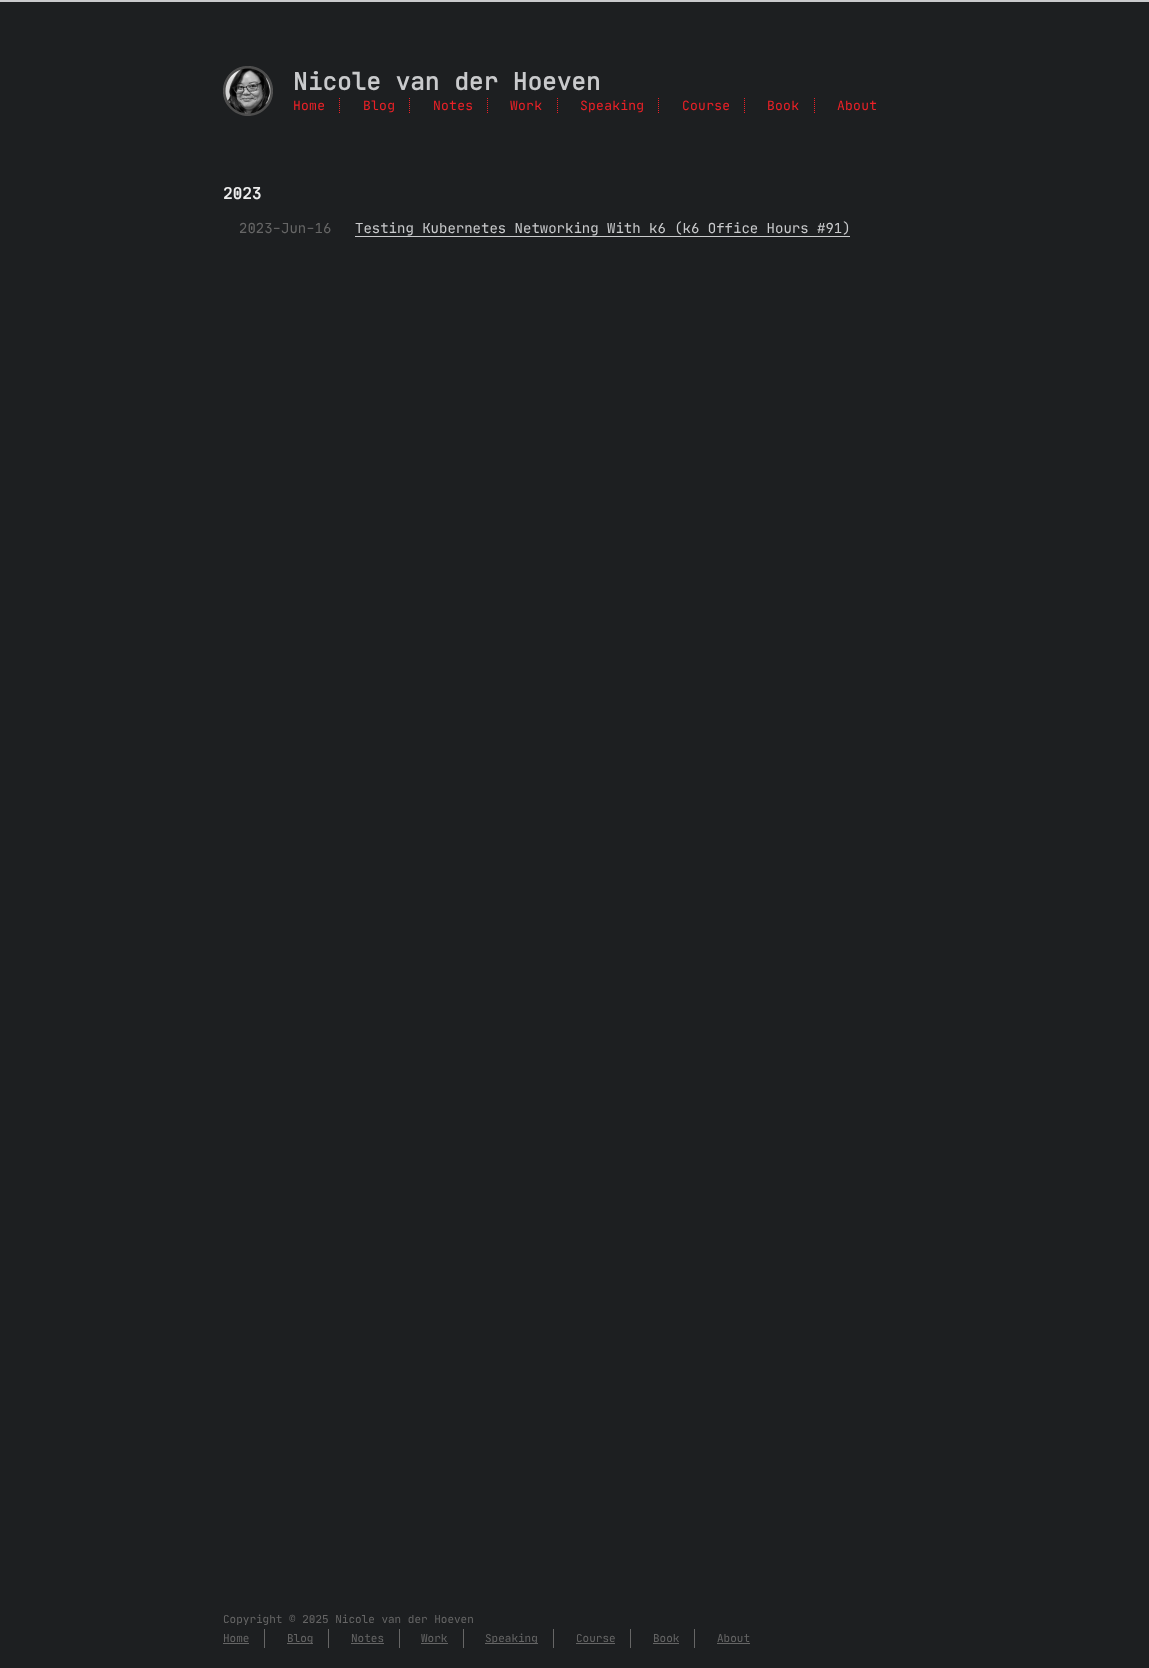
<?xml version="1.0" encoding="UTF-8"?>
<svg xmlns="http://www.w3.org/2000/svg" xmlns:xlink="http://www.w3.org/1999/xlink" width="1149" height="1668">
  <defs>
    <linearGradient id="g1" gradientUnits="userSpaceOnUse" x1="603" y1="231" x2="603" y2="237"><stop offset="0" stop-color="#1d1f21" /><stop offset="0.83" stop-color="#1d1f21" /><stop offset="0.83" stop-color="#c9cacc" /><stop offset="1" stop-color="#c9cacc" /></linearGradient>
  </defs>
  <rect width="100%" height="100%" fill="#1d1f21" />
  <rect width="1149" height="2" fill="#c9cacc" />
  <image x="223" y="66" width="50" height="50" xlink:href="image1.png" />
  <path d="M 339.5 98 v 15" fill="none" stroke="#ec2127" stroke-dasharray="1 1" />
  <path d="M 409.5 98 v 15" fill="none" stroke="#ec2127" stroke-dasharray="1 1" />
  <path d="M 487.5 98 v 15" fill="none" stroke="#ec2127" stroke-dasharray="1 1" />
  <path d="M 557.5 98 v 15" fill="none" stroke="#ec2127" stroke-dasharray="1 1" />
  <path d="M 658.5 98 v 15" fill="none" stroke="#ec2127" stroke-dasharray="1 1" />
  <path d="M 744.5 98 v 15" fill="none" stroke="#ec2127" stroke-dasharray="1 1" />
  <path d="M 814.5 98 v 15" fill="none" stroke="#ec2127" stroke-dasharray="1 1" />
  <rect x="355" y="236" width="495" height="1" fill="url(#g1)" />
  <rect x="264" y="1629" width="1" height="19" fill="#666666" />
  <rect x="223" y="1643" width="26" height="1" fill="#666666" />
  <rect x="328" y="1629" width="1" height="19" fill="#666666" />
  <rect x="287" y="1643" width="26" height="1" fill="#666666" />
  <rect x="399" y="1629" width="1" height="19" fill="#666666" />
  <rect x="351" y="1643" width="33" height="1" fill="#666666" />
  <rect x="463" y="1629" width="1" height="19" fill="#666666" />
  <rect x="421" y="1643" width="27" height="1" fill="#666666" />
  <rect x="553" y="1629" width="1" height="19" fill="#666666" />
  <rect x="485" y="1643" width="53" height="1" fill="#666666" />
  <rect x="630" y="1629" width="1" height="19" fill="#666666" />
  <rect x="576" y="1643" width="39" height="1" fill="#666666" />
  <rect x="694" y="1629" width="1" height="19" fill="#666666" />
  <rect x="653" y="1643" width="26" height="1" fill="#666666" />
  <rect x="717" y="1643" width="33" height="1" fill="#666666" />
  <text x="293" y="90" style="font-family: JetBrains Mono; font-size: 24px; font-weight: bold; letter-spacing: 0.25px; fill: #c9cacc">Nicole van der Hoeven</text>
  <text x="293" y="110" style="font-family: JetBrains Mono; font-size: 13px; letter-spacing: 0.25px; fill: #ec2127">Home</text>
  <text x="363" y="110" style="font-family: JetBrains Mono; font-size: 13px; letter-spacing: 0.25px; fill: #ec2127">Blog</text>
  <text x="433" y="110" style="font-family: JetBrains Mono; font-size: 13px; letter-spacing: 0.25px; fill: #ec2127">Notes</text>
  <text x="510" y="110" style="font-family: JetBrains Mono; font-size: 13px; letter-spacing: 0.25px; fill: #ec2127">Work</text>
  <text x="580" y="110" style="font-family: JetBrains Mono; font-size: 13px; letter-spacing: 0.25px; fill: #ec2127">Speaking</text>
  <text x="682" y="110" style="font-family: JetBrains Mono; font-size: 13px; letter-spacing: 0.25px; fill: #ec2127">Course</text>
  <text x="767" y="110" style="font-family: JetBrains Mono; font-size: 13px; letter-spacing: 0.25px; fill: #ec2127">Book</text>
  <text x="837" y="110" style="font-family: JetBrains Mono; font-size: 13px; letter-spacing: 0.25px; fill: #ec2127">About</text>
  <text x="223" y="199" style="font-family: JetBrains Mono; font-size: 16px; font-weight: bold; fill: #eeeeee">2023</text>
  <text x="239" y="233" style="font-family: JetBrains Mono; font-size: 14px; fill: #666666">2023-Jun-16</text>
  <text x="355" y="233" style="font-family: JetBrains Mono; font-size: 14px; fill: #c9cacc">Testing Kubernetes Networking With k6 (k6 Office Hours #91)</text>
  <text x="223" y="1623" style="font-family: JetBrains Mono; font-size: 11px; fill: #666666">Copyright © 2025 Nicole van der Hoeven</text>
  <text x="223" y="1642" style="font-family: JetBrains Mono; font-size: 11px; fill: #666666">Home</text>
  <text x="287" y="1642" style="font-family: JetBrains Mono; font-size: 11px; fill: #666666">Blog</text>
  <text x="351" y="1642" style="font-family: JetBrains Mono; font-size: 11px; fill: #666666">Notes</text>
  <text x="421" y="1642" style="font-family: JetBrains Mono; font-size: 11px; fill: #666666">Work</text>
  <text x="485" y="1642" style="font-family: JetBrains Mono; font-size: 11px; fill: #666666">Speaking</text>
  <text x="576" y="1642" style="font-family: JetBrains Mono; font-size: 11px; fill: #666666">Course</text>
  <text x="653" y="1642" style="font-family: JetBrains Mono; font-size: 11px; fill: #666666">Book</text>
  <text x="717" y="1642" style="font-family: JetBrains Mono; font-size: 11px; fill: #666666">About</text>
</svg>
